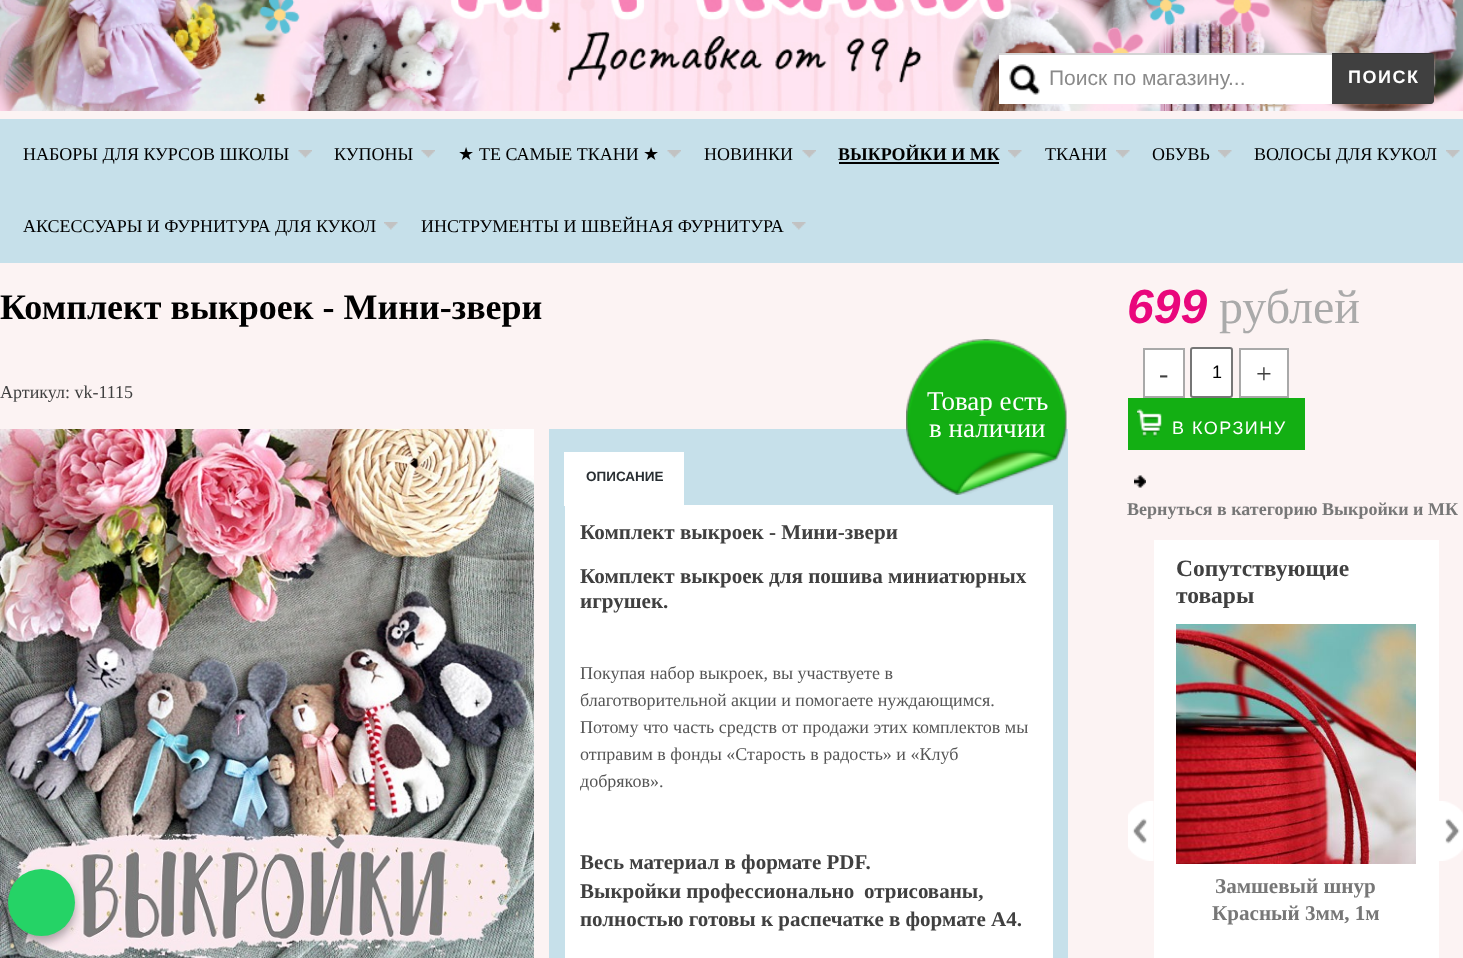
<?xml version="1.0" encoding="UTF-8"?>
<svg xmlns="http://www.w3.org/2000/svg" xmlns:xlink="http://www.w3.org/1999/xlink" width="1463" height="958">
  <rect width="100%" height="100%" fill="#fcf3f3" />
  <image x="0" y="0" width="1463" height="111" xlink:href="image1.png" />
  <rect x="999" y="55" width="333" height="49" fill="#ffffff" />
  <image x="1009" y="64" width="31" height="31" xlink:href="image2.png" />
  <rect x="999" y="53" width="333" height="2" fill="#d4d4d4" />
  <path d="M 1332 53 h 99 c 1.5 0 3 1.5 3 3 v 45 c 0 1.5 -1.5 3 -3 3 h -99 z" fill="#404040" />
  <path d="M 1332 54 h 99 c 2 0 3 1 3 3 v -1 c 0 -2 -1 -3 -3 -3 h -99 z" fill="#000000" fill-opacity="0.17" />
  <rect y="119" width="1463" height="144" fill="#c6e0ea" />
  <image x="298" y="150" width="14" height="8" xlink:href="image3.png" />
  <image x="421" y="150" width="14" height="8" xlink:href="image3.png" />
  <image x="667" y="150" width="14" height="8" xlink:href="image3.png" />
  <image x="802" y="150" width="14" height="8" xlink:href="image4.png" />
  <image x="1008" y="150" width="14" height="8" xlink:href="image5.png" />
  <rect x="839" y="162" width="160" height="2" fill="#000000" />
  <image x="1116" y="150" width="14" height="8" xlink:href="image6.png" />
  <image x="1218" y="150" width="14" height="8" xlink:href="image6.png" />
  <image x="1446" y="150" width="14" height="8" xlink:href="image5.png" />
  <image x="384" y="222" width="14" height="8" xlink:href="image6.png" />
  <image x="792" y="222" width="14" height="8" xlink:href="image5.png" />
  <rect x="549" y="429" width="519" height="529" fill="#c6e0ea" />
  <image x="906" y="339" width="161" height="156" xlink:href="image7.png" />
  <image x="0" y="429" width="534" height="529" xlink:href="image8.png" />
  <rect x="565" y="505" width="488" height="453" fill="#ffffff" />
  <rect x="564" y="452" width="120" height="54" fill="#ffffff" />
  <rect x="1144" y="349" width="40" height="48" fill="#ffffff" stroke="#a9a9a9" stroke-width="2" />
  <rect x="1191" y="348" width="41" height="49" rx="2" fill="#ffffff" stroke="#767676" stroke-width="2" />
  <rect x="1240" y="349" width="48" height="48" fill="#ffffff" stroke="#a9a9a9" stroke-width="2" />
  <rect x="1128" y="398" width="177" height="52" fill="#13af13" />
  <image x="1137" y="409" width="25" height="28" xlink:href="image9.png" />
  <image x="1134" y="475" width="12" height="13" xlink:href="image10.png" />
  <rect x="1154" y="540" width="285" height="418" fill="#ffffff" />
  <image x="1128" y="801" width="26" height="60" xlink:href="image11.png" />
  <image x="1439" y="801" width="24" height="60" xlink:href="image12.png" />
  <image x="1176" y="624" width="240" height="240" xlink:href="image13.png" />
  <rect x="8" y="875" width="67" height="67" rx="33.5" fill="#000000" fill-opacity="0.3" filter="blur(4.5px)" />
  <circle cx="41.5" cy="902.5" r="33.5" fill="#25d366" />
  <text x="1049" y="85" style="font-family: Liberation Sans; font-size: 21px; fill: #8a8a8a">Поиск по магазину...</text>
  <text x="1348" y="83" style="font-family: Liberation Sans; font-size: 18px; font-weight: bold; letter-spacing: 1.5px; fill: #ffffff">ПОИСК</text>
  <text x="23" y="160" style="font-family: Liberation Serif; font-size: 18px; fill: #000000">НАБОРЫ ДЛЯ КУРСОВ ШКОЛЫ</text>
  <text x="334" y="160" style="font-family: Liberation Serif; font-size: 18px; fill: #000000">КУПОНЫ</text>
  <text x="458" y="160" style="font-family: DejaVu Sans; font-size: 18px; fill: #000000">★</text>
  <text x="479" y="160" style="font-family: Liberation Serif; font-size: 18px; fill: #000000">ТЕ САМЫЕ ТКАНИ</text>
  <text x="643" y="160" style="font-family: DejaVu Sans; font-size: 18px; fill: #000000">★</text>
  <text x="704" y="160" style="font-family: Liberation Serif; font-size: 18px; fill: #000000">НОВИНКИ</text>
  <text x="838" y="160" style="font-family: Liberation Serif; font-size: 18px; font-weight: bold; fill: #000000">ВЫКРОЙКИ И МК</text>
  <text x="1045" y="160" style="font-family: Liberation Serif; font-size: 18px; fill: #000000">ТКАНИ</text>
  <text x="1152" y="160" style="font-family: Liberation Serif; font-size: 18px; fill: #000000">ОБУВЬ</text>
  <text x="1254" y="160" style="font-family: Liberation Serif; font-size: 18px; fill: #000000">ВОЛОСЫ ДЛЯ КУКОЛ</text>
  <text x="23" y="232" style="font-family: Liberation Serif; font-size: 18px; fill: #000000">АКСЕССУАРЫ И ФУРНИТУРА ДЛЯ КУКОЛ</text>
  <text x="421" y="232" style="font-family: Liberation Serif; font-size: 18px; fill: #000000">ИНСТРУМЕНТЫ И ШВЕЙНАЯ ФУРНИТУРА</text>
  <text x="0" y="319" style="font-family: Liberation Serif; font-size: 36px; font-weight: bold; fill: #000000">Комплект выкроек - Мини-звери</text>
  <text x="0" y="398" style="font-family: Liberation Serif; font-size: 18px; fill: #404040">Артикул: vk-1115</text>
  <text x="927" y="410" style="font-family: Liberation Serif; font-size: 27px; fill: #ffffff">Товар есть</text>
  <text x="929" y="437" style="font-family: Liberation Serif; font-size: 27px; fill: #ffffff">в наличии</text>
  <text x="586" y="481" style="font-family: Liberation Sans; font-size: 13.5px; font-weight: bold; fill: #282e32">ОПИСАНИЕ</text>
  <text x="580" y="539" style="font-family: Liberation Serif; font-size: 21.1px; font-weight: bold; fill: #404040">Комплект выкроек - Мини-звери</text>
  <text x="580" y="583" style="font-family: Liberation Serif; font-size: 21.1px; font-weight: bold; fill: #404040">Комплект выкроек для пошива миниатюрных</text>
  <text x="580" y="608" style="font-family: Liberation Serif; font-size: 21.1px; font-weight: bold; fill: #404040">игрушек.</text>
  <text x="580" y="679" style="font-family: Liberation Serif; font-size: 18px; fill: #555555">Покупая набор выкроек, вы участвуете в</text>
  <text x="580" y="706" style="font-family: Liberation Serif; font-size: 18px; fill: #555555">благотворительной акции и помогаете нуждающимся.</text>
  <text x="580" y="733" style="font-family: Liberation Serif; font-size: 18px; fill: #555555">Потому что часть средств от продажи этих комплектов мы</text>
  <text x="580" y="760" style="font-family: Liberation Serif; font-size: 18px; fill: #555555">отправим в фонды «Старость в радость» и «Клуб</text>
  <text x="580" y="787" style="font-family: Liberation Serif; font-size: 18px; fill: #555555">добряков».</text>
  <text x="580" y="869" style="font-family: Liberation Serif; font-size: 21px; font-weight: bold; fill: #404040">Весь материал в формате PDF.</text>
  <text x="580" y="898" style="font-family: Liberation Serif; font-size: 21px; font-weight: bold; fill: #404040">Выкройки профессионально</text>
  <text x="864" y="898" style="font-family: Liberation Serif; font-size: 21px; font-weight: bold; fill: #404040">отрисованы,</text>
  <text x="580" y="926" style="font-family: Liberation Serif; font-size: 21px; font-weight: bold; fill: #404040">полностью готовы к распечатке в формате А4.</text>
  <text x="1127" y="323" style="font-family: Liberation Sans; font-size: 48px; font-weight: bold; font-style: italic; fill: #e9077c">699</text>
  <text x="1219" y="323" style="font-family: Liberation Serif; font-size: 48px; fill: #aaaaaa">рублей</text>
  <text x="1159" y="383" style="font-family: Liberation Serif; font-size: 28px; fill: #404040">-</text>
  <text x="1212" y="378" style="font-family: Liberation Sans; font-size: 18px; fill: #000000">1</text>
  <text x="1256" y="383" style="font-family: Liberation Serif; font-size: 28px; fill: #404040">+</text>
  <text x="1172" y="434" style="font-family: Liberation Sans; font-size: 18px; letter-spacing: 1.5px; fill: #ffffff">В КОРЗИНУ</text>
  <text x="1127" y="515" style="font-family: Liberation Serif; font-size: 18px; font-weight: bold; fill: #777777">Вернуться в категорию Выкройки и МК</text>
  <text x="1176" y="576" style="font-family: Liberation Serif; font-size: 23.5px; font-weight: bold; fill: #404040">Сопутствующие</text>
  <text x="1176" y="603" style="font-family: Liberation Serif; font-size: 23.5px; font-weight: bold; fill: #404040">товары</text>
  <text x="1215" y="893" style="font-family: Liberation Serif; font-size: 21.1px; font-weight: bold; fill: #777777">Замшевый шнур</text>
  <text x="1212" y="920" style="font-family: Liberation Serif; font-size: 21.1px; font-weight: bold; fill: #777777">Красный 3мм, 1м</text>
</svg>
